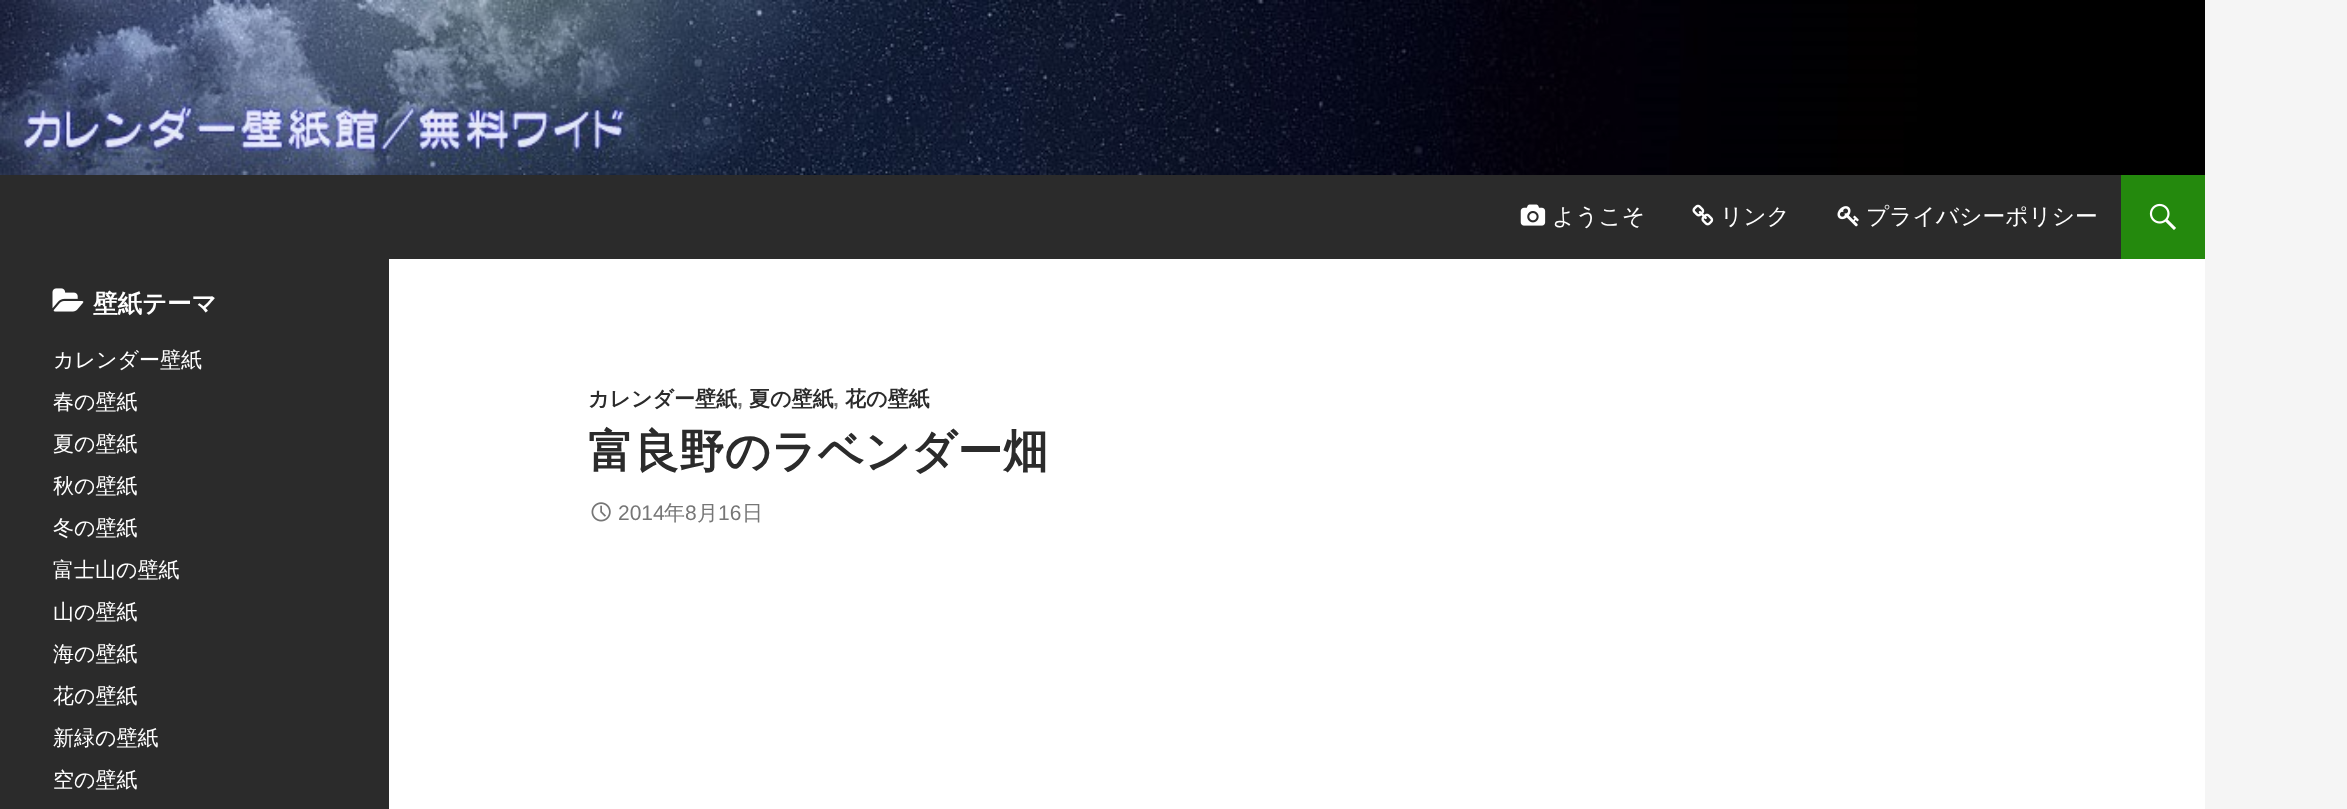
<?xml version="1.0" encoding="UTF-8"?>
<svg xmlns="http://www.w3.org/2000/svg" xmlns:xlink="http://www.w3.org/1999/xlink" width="2347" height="809">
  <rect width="100%" height="100%" fill="#f5f5f5" />
  <rect x="389" y="259" width="1816" height="550" fill="#ffffff" />
  <image x="0" y="0" width="2205" height="175" xlink:href="image1.png" />
  <rect y="175" width="2121" height="84" fill="#2b2b2b" />
  <image x="1520" y="204" width="26" height="22" xlink:href="image2.png" />
  <image x="1692" y="204" width="22" height="22" xlink:href="image3.png" />
  <image x="1837" y="206" width="22" height="21" xlink:href="image4.png" />
  <rect x="2121" y="175" width="84" height="84" fill="#24890d" />
  <image x="2149" y="203" width="27" height="27" xlink:href="image5.png" />
  <rect y="259" width="389" height="550" fill="#2b2b2b" />
  <image x="52" y="288" width="32" height="24" xlink:href="image6.png" />
  <image x="591" y="502" width="20" height="20" xlink:href="image7.png" />
  <text x="1552" y="224" style="font-family: WenQuanYi Zen Hei; font-size: 22.75px; font-weight: 500; fill: #ffffff">ようこそ</text>
  <text x="1720" y="224" style="font-family: WenQuanYi Zen Hei; font-size: 22.75px; font-weight: 500; fill: #ffffff">リンク</text>
  <text x="1866" y="224" style="font-family: WenQuanYi Zen Hei; font-size: 22.75px; font-weight: 500; fill: #ffffff">プライバシーポリシー</text>
  <text x="93" y="312" style="font-family: WenQuanYi Zen Hei; font-size: 24.5px; font-weight: bold; fill: #ffffff">壁紙テーマ</text>
  <text x="53" y="367" style="font-family: WenQuanYi Zen Hei; font-size: 21px; font-weight: 500; fill: #ffffff">カレンダー壁紙</text>
  <text x="53" y="409" style="font-family: WenQuanYi Zen Hei; font-size: 21px; font-weight: 500; fill: #ffffff">春の壁紙</text>
  <text x="53" y="451" style="font-family: WenQuanYi Zen Hei; font-size: 21px; font-weight: 500; fill: #ffffff">夏の壁紙</text>
  <text x="53" y="493" style="font-family: WenQuanYi Zen Hei; font-size: 21px; font-weight: 500; fill: #ffffff">秋の壁紙</text>
  <text x="53" y="535" style="font-family: WenQuanYi Zen Hei; font-size: 21px; font-weight: 500; fill: #ffffff">冬の壁紙</text>
  <text x="53" y="577" style="font-family: WenQuanYi Zen Hei; font-size: 21px; font-weight: 500; fill: #ffffff">富士山の壁紙</text>
  <text x="53" y="619" style="font-family: WenQuanYi Zen Hei; font-size: 21px; font-weight: 500; fill: #ffffff">山の壁紙</text>
  <text x="53" y="661" style="font-family: WenQuanYi Zen Hei; font-size: 21px; font-weight: 500; fill: #ffffff">海の壁紙</text>
  <text x="53" y="703" style="font-family: WenQuanYi Zen Hei; font-size: 21px; font-weight: 500; fill: #ffffff">花の壁紙</text>
  <text x="53" y="745" style="font-family: WenQuanYi Zen Hei; font-size: 21px; font-weight: 500; fill: #ffffff">新緑の壁紙</text>
  <text x="53" y="787" style="font-family: WenQuanYi Zen Hei; font-size: 21px; font-weight: 500; fill: #ffffff">空の壁紙</text>
  <text x="588" y="406" style="font-family: WenQuanYi Zen Hei; font-size: 21px; font-weight: bold; fill: #2b2b2b">カレンダー壁紙</text>
  <text x="737" y="406" style="font-family: Liberation Sans; font-size: 21px; font-weight: bold; fill: #767676">,</text>
  <text x="749" y="406" style="font-family: WenQuanYi Zen Hei; font-size: 21px; font-weight: bold; fill: #2b2b2b">夏の壁紙</text>
  <text x="833" y="406" style="font-family: Liberation Sans; font-size: 21px; font-weight: bold; fill: #767676">,</text>
  <text x="845" y="406" style="font-family: WenQuanYi Zen Hei; font-size: 21px; font-weight: bold; fill: #2b2b2b">花の壁紙</text>
  <text x="588" y="467" style="font-family: WenQuanYi Zen Hei; font-size: 45.5px; font-weight: bold; fill: #2b2b2b">富良野のラベンダー畑</text>
  <text x="618" y="520" style="font-family: Liberation Sans; font-size: 21px; fill: #767676">2014</text>
  <text x="664" y="520" style="font-family: WenQuanYi Zen Hei; font-size: 21px; font-weight: 500; fill: #767676">年</text>
  <text x="685" y="520" style="font-family: Liberation Sans; font-size: 21px; fill: #767676">8</text>
  <text x="697" y="520" style="font-family: WenQuanYi Zen Hei; font-size: 21px; font-weight: 500; fill: #767676">月</text>
  <text x="718" y="520" style="font-family: Liberation Sans; font-size: 21px; fill: #767676">16</text>
  <text x="742" y="520" style="font-family: WenQuanYi Zen Hei; font-size: 21px; font-weight: 500; fill: #767676">日</text>
</svg>
